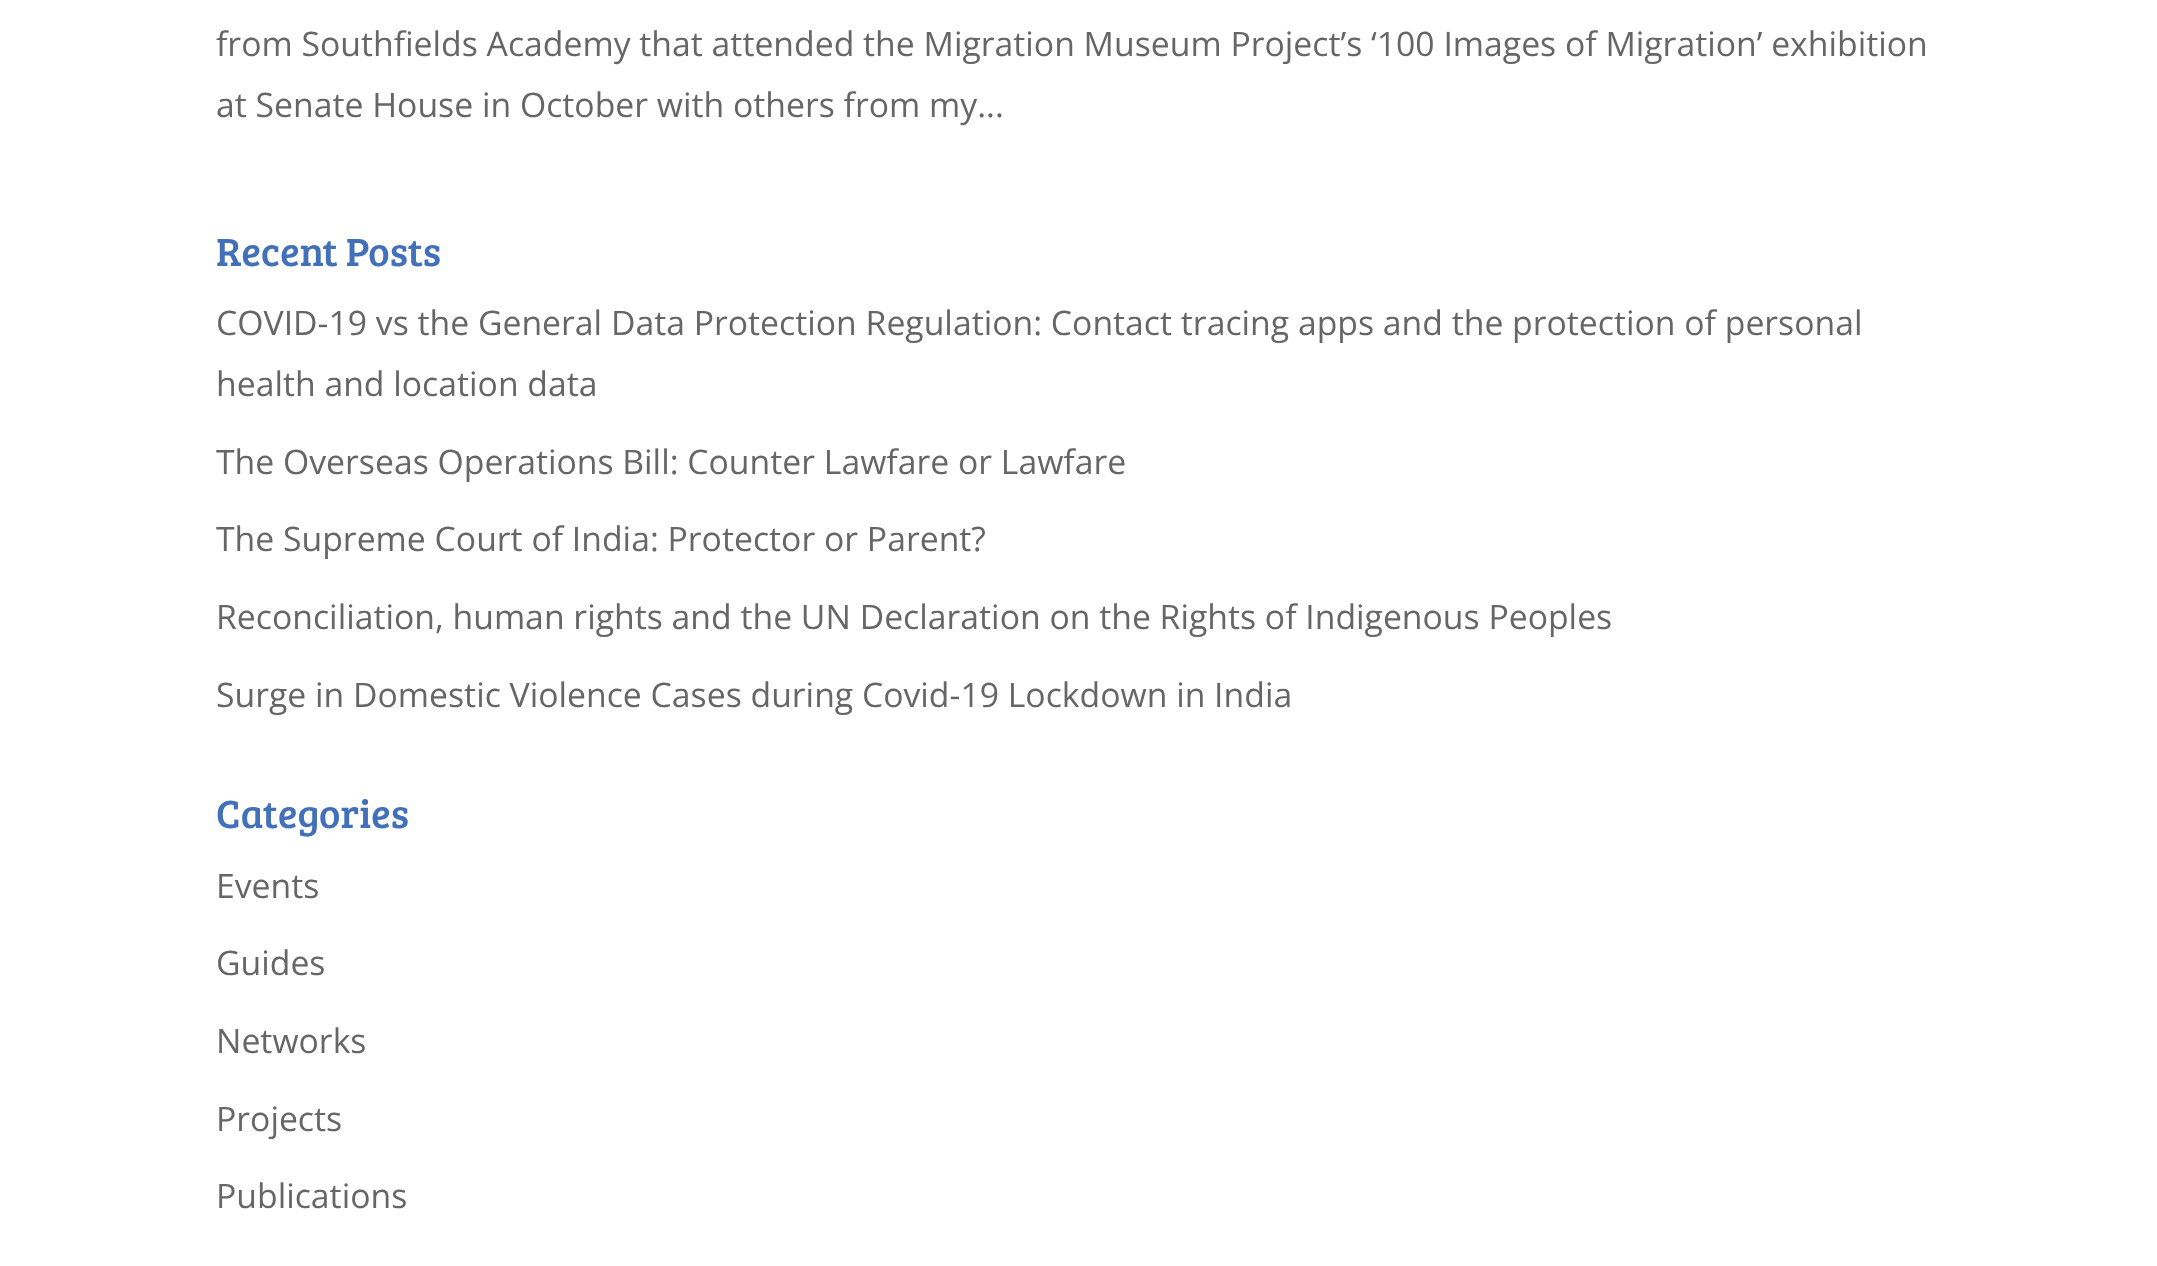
<?xml version="1.0" encoding="UTF-8"?>
<svg xmlns="http://www.w3.org/2000/svg" xmlns:xlink="http://www.w3.org/1999/xlink" width="2157" height="1266">
  <rect width="100%" height="100%" fill="#ffffff" />
  <text x="216" y="56" style="font-family: Open Sans; font-size: 33.75px; fill: #666666">from Southfields Academy that attended the Migration Museum Project’s ‘100 Images of Migration’ exhibition</text>
  <text x="216" y="117" style="font-family: Open Sans; font-size: 33.75px; fill: #666666">at Senate House in October with others from my...</text>
  <text x="216" y="266" style="font-family: Bree Serif; font-size: 40.5px; fill: #4271b9">Recent Posts</text>
  <text x="216" y="335" style="font-family: Open Sans; font-size: 33.75px; fill: #666666">COVID-19 vs the General Data Protection Regulation: Contact tracing apps and the protection of personal</text>
  <text x="216" y="396" style="font-family: Open Sans; font-size: 33.75px; fill: #666666">health and location data</text>
  <text x="216" y="474" style="font-family: Open Sans; font-size: 33.75px; fill: #666666">The Overseas Operations Bill: Counter Lawfare or Lawfare</text>
  <text x="216" y="551" style="font-family: Open Sans; font-size: 33.75px; fill: #666666">The Supreme Court of India: Protector or Parent?</text>
  <text x="216" y="629" style="font-family: Open Sans; font-size: 33.75px; fill: #666666">Reconciliation, human rights and the UN Declaration on the Rights of Indigenous Peoples</text>
  <text x="216" y="707" style="font-family: Open Sans; font-size: 33.75px; fill: #666666">Surge in Domestic Violence Cases during Covid-19 Lockdown in India</text>
  <text x="216" y="828" style="font-family: Bree Serif; font-size: 40.5px; fill: #4271b9">Categories</text>
  <text x="216" y="898" style="font-family: Open Sans; font-size: 33.75px; fill: #666666">Events</text>
  <text x="216" y="975" style="font-family: Open Sans; font-size: 33.75px; fill: #666666">Guides</text>
  <text x="216" y="1053" style="font-family: Open Sans; font-size: 33.75px; fill: #666666">Networks</text>
  <text x="216" y="1131" style="font-family: Open Sans; font-size: 33.75px; fill: #666666">Projects</text>
  <text x="216" y="1208" style="font-family: Open Sans; font-size: 33.75px; fill: #666666">Publications</text>
</svg>
